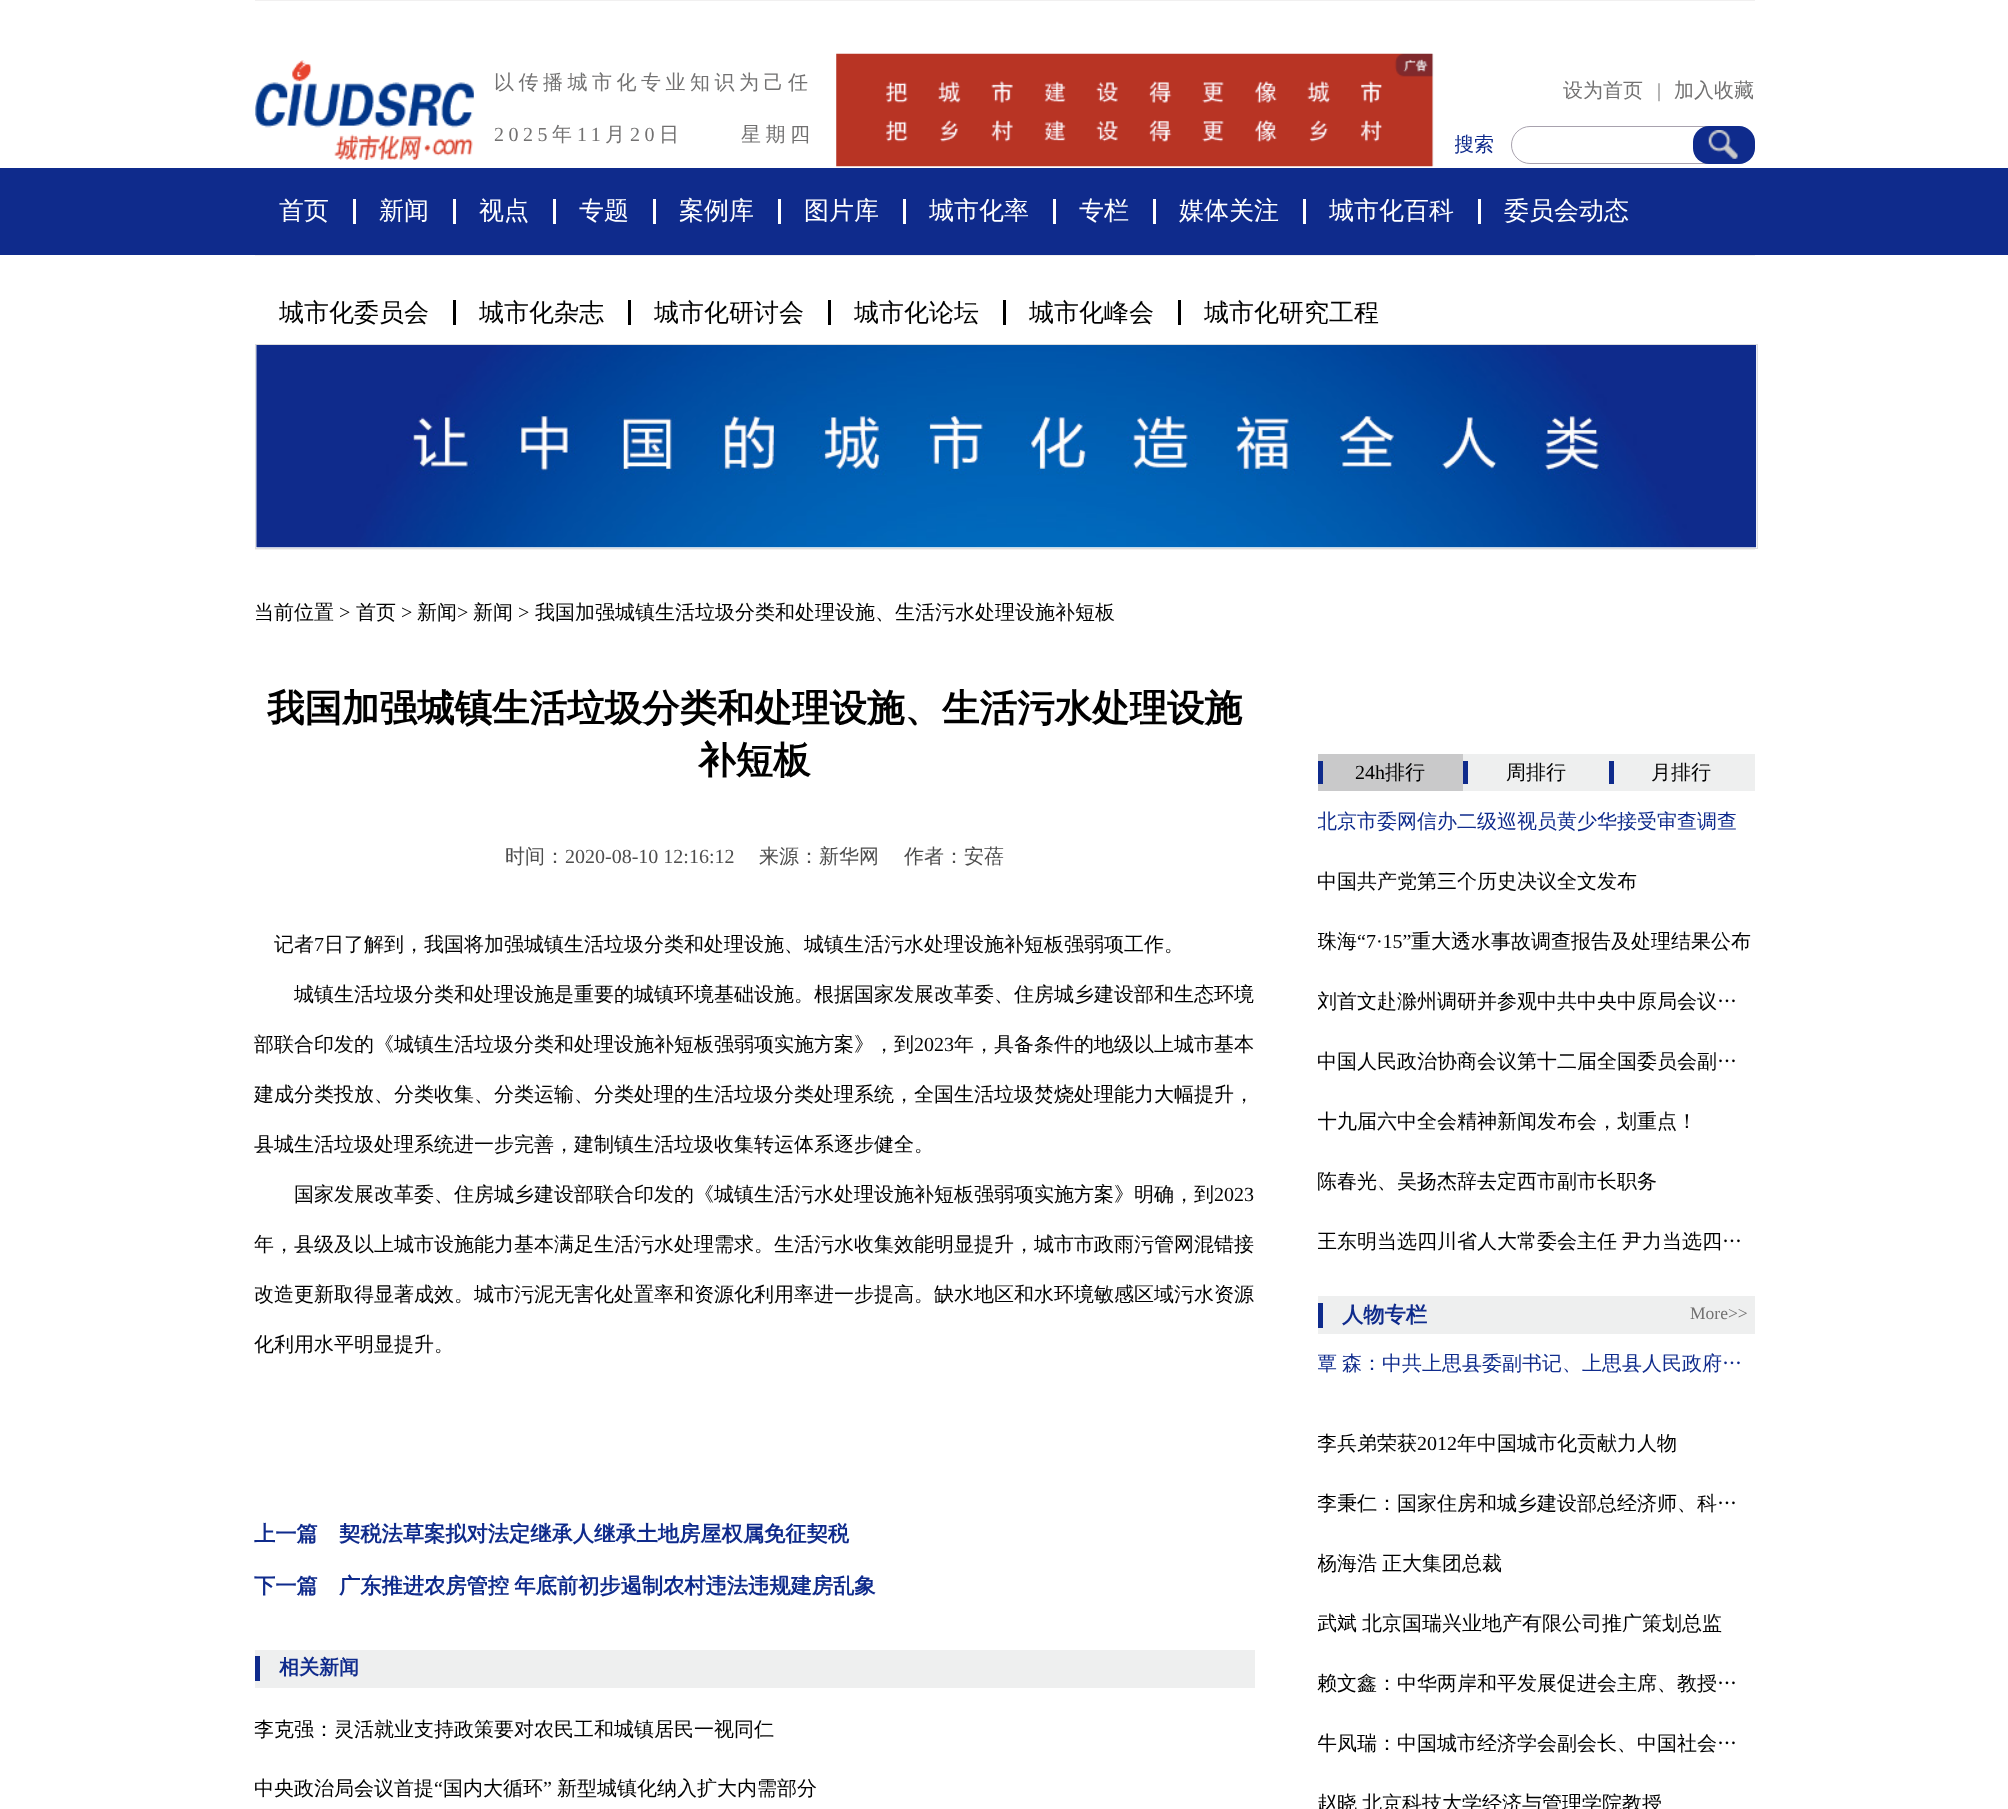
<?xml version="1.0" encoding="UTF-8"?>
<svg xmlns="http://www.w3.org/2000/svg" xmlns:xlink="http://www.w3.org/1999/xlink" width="2008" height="1809">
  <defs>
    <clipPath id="clip1"><rect x="1455" y="54" width="300" height="112" /></clipPath>
    <clipPath id="clip2"><rect x="1318" y="791" width="437" height="60" /></clipPath>
    <clipPath id="clip3"><rect x="1318" y="911" width="437" height="60" /></clipPath>
    <clipPath id="clip4"><rect x="1318" y="971" width="437" height="60" /></clipPath>
    <clipPath id="clip5"><rect x="1318" y="1091" width="437" height="60" /></clipPath>
    <clipPath id="clip6"><rect x="1318" y="1211" width="437" height="60" /></clipPath>
    <clipPath id="clip7"><rect x="1318" y="1334" width="437" height="60" /></clipPath>
    <clipPath id="clip8"><rect x="1318" y="1414" width="437" height="60" /></clipPath>
    <clipPath id="clip9"><rect x="1318" y="1474" width="437" height="60" /></clipPath>
    <clipPath id="clip10"><rect x="1318" y="1534" width="437" height="60" /></clipPath>
    <clipPath id="clip11"><rect x="1318" y="1594" width="437" height="60" /></clipPath>
    <clipPath id="clip12"><rect x="1318" y="1714" width="437" height="60" /></clipPath>
  </defs>
  <rect width="100%" height="100%" fill="#ffffff" />
  <rect x="255" width="1500" height="1" fill="#f1f0f0" />
  <image x="255" y="60" width="219" height="100" xlink:href="image1.png" />
  <rect x="836" y="54" width="598" height="112" fill="#f5f5f5" />
  <image x="836" y="53" width="597" height="114" xlink:href="image2.png" />
  <rect x="1511.5" y="126.5" width="243" height="37" rx="18.5" fill="none" stroke="#a8a2ae" />
  <rect x="1693" y="126" width="62" height="38" rx="16" fill="#0f2b8c" />
  <image x="1708" y="130" width="30" height="29" xlink:href="image3.png" />
  <rect y="168" width="2008" height="87" fill="#0f2b8c" />
  <rect x="353" y="199" width="3" height="25" fill="#ffffff" />
  <rect x="453" y="199" width="3" height="25" fill="#ffffff" />
  <rect x="553" y="199" width="3" height="25" fill="#ffffff" />
  <rect x="653" y="199" width="3" height="25" fill="#ffffff" />
  <rect x="778" y="199" width="3" height="25" fill="#ffffff" />
  <rect x="903" y="199" width="3" height="25" fill="#ffffff" />
  <rect x="1053" y="199" width="3" height="25" fill="#ffffff" />
  <rect x="1153" y="199" width="3" height="25" fill="#ffffff" />
  <rect x="1303" y="199" width="3" height="25" fill="#ffffff" />
  <rect x="1478" y="199" width="3" height="25" fill="#ffffff" />
  <rect x="255" y="255" width="1500" height="1" fill="#f1f0f0" />
  <rect x="453" y="300" width="3" height="25" fill="#000000" />
  <rect x="628" y="300" width="3" height="25" fill="#000000" />
  <rect x="828" y="300" width="3" height="25" fill="#000000" />
  <rect x="1003" y="300" width="3" height="25" fill="#000000" />
  <rect x="1178" y="300" width="3" height="25" fill="#000000" />
  <rect x="255.5" y="344.5" width="1502" height="204" fill="none" stroke="#dddddd" />
  <image x="256" y="345" width="1501" height="203" xlink:href="image4.png" />
  <rect x="255" y="549" width="1500" height="1" fill="#f1f0f0" />
  <rect x="255" y="1650" width="1000" height="38" fill="#eeefef" />
  <rect x="255" y="1656" width="5" height="25" fill="#0f2b8c" />
  <rect x="1318" y="754" width="145" height="37" fill="#c9c9ca" />
  <rect x="1318" y="761" width="5" height="23" fill="#0f2b8c" />
  <rect x="1463" y="754" width="292" height="37" fill="#eeefef" />
  <rect x="1463" y="761" width="5" height="23" fill="#0f2b8c" />
  <rect x="1609" y="761" width="5" height="23" fill="#0f2b8c" />
  <rect x="1318" y="1296" width="437" height="38" fill="#eeefef" />
  <rect x="1318" y="1303" width="5" height="25" fill="#0f2b8c" />
  <text x="494" y="89" style="font-family: WenQuanYi Zen Hei; font-size: 20px; font-weight: 500; letter-spacing: 4.5px; fill: #727171">以传播城市化专业知识为己任</text>
  <text x="494" y="141" style="font-family: Liberation Serif; font-size: 20px; letter-spacing: 4.5px; fill: #727171">2025</text>
  <text x="552" y="141" style="font-family: WenQuanYi Zen Hei; font-size: 20px; font-weight: 500; letter-spacing: 4.5px; fill: #727171">年</text>
  <text x="577" y="141" style="font-family: Liberation Serif; font-size: 20px; letter-spacing: 4.5px; fill: #727171">11</text>
  <text x="605" y="141" style="font-family: WenQuanYi Zen Hei; font-size: 20px; font-weight: 500; letter-spacing: 4.5px; fill: #727171">月</text>
  <text x="630" y="141" style="font-family: Liberation Serif; font-size: 20px; letter-spacing: 4.5px; fill: #727171">20</text>
  <text x="659" y="141" style="font-family: WenQuanYi Zen Hei; font-size: 20px; font-weight: 500; letter-spacing: 4.5px; fill: #727171">日</text>
  <text x="741" y="141" style="font-family: WenQuanYi Zen Hei; font-size: 20px; font-weight: 500; letter-spacing: 4.5px; fill: #727171">星期四</text>
  <text x="1563" y="97" style="font-family: WenQuanYi Zen Hei; font-size: 20px; font-weight: 500; fill: #727171">设为首页</text>
  <text x="1657" y="97" style="font-family: Liberation Serif; font-size: 20px; fill: #727171">|</text>
  <text x="1674" y="97" style="font-family: WenQuanYi Zen Hei; font-size: 20px; font-weight: 500; fill: #727171">加入收藏</text>
  <g clip-path="url(#clip1)">
    <text x="1454" y="151" style="font-family: WenQuanYi Zen Hei; font-size: 20px; font-weight: 500; fill: #0f2b8c">搜索</text>
  </g>
  <text x="279" y="219" style="font-family: WenQuanYi Zen Hei; font-size: 25px; font-weight: 500; fill: #ffffff">首页</text>
  <text x="379" y="219" style="font-family: WenQuanYi Zen Hei; font-size: 25px; font-weight: 500; fill: #ffffff">新闻</text>
  <text x="479" y="219" style="font-family: WenQuanYi Zen Hei; font-size: 25px; font-weight: 500; fill: #ffffff">视点</text>
  <text x="579" y="219" style="font-family: WenQuanYi Zen Hei; font-size: 25px; font-weight: 500; fill: #ffffff">专题</text>
  <text x="679" y="219" style="font-family: WenQuanYi Zen Hei; font-size: 25px; font-weight: 500; fill: #ffffff">案例库</text>
  <text x="804" y="219" style="font-family: WenQuanYi Zen Hei; font-size: 25px; font-weight: 500; fill: #ffffff">图片库</text>
  <text x="929" y="219" style="font-family: WenQuanYi Zen Hei; font-size: 25px; font-weight: 500; fill: #ffffff">城市化率</text>
  <text x="1079" y="219" style="font-family: WenQuanYi Zen Hei; font-size: 25px; font-weight: 500; fill: #ffffff">专栏</text>
  <text x="1179" y="219" style="font-family: WenQuanYi Zen Hei; font-size: 25px; font-weight: 500; fill: #ffffff">媒体关注</text>
  <text x="1329" y="219" style="font-family: WenQuanYi Zen Hei; font-size: 25px; font-weight: 500; fill: #ffffff">城市化百科</text>
  <text x="1504" y="219" style="font-family: WenQuanYi Zen Hei; font-size: 25px; font-weight: 500; fill: #ffffff">委员会动态</text>
  <text x="279" y="321" style="font-family: WenQuanYi Zen Hei; font-size: 25px; font-weight: 500; fill: #000000">城市化委员会</text>
  <text x="479" y="321" style="font-family: WenQuanYi Zen Hei; font-size: 25px; font-weight: 500; fill: #000000">城市化杂志</text>
  <text x="654" y="321" style="font-family: WenQuanYi Zen Hei; font-size: 25px; font-weight: 500; fill: #000000">城市化研讨会</text>
  <text x="854" y="321" style="font-family: WenQuanYi Zen Hei; font-size: 25px; font-weight: 500; fill: #000000">城市化论坛</text>
  <text x="1029" y="321" style="font-family: WenQuanYi Zen Hei; font-size: 25px; font-weight: 500; fill: #000000">城市化峰会</text>
  <text x="1204" y="321" style="font-family: WenQuanYi Zen Hei; font-size: 25px; font-weight: 500; fill: #000000">城市化研究工程</text>
  <text x="254" y="619" style="font-family: WenQuanYi Zen Hei; font-size: 20px; font-weight: 500; fill: #000000">当前位置</text>
  <text x="339" y="619" style="font-family: Liberation Serif; font-size: 20px; fill: #000000">&gt;</text>
  <text x="356" y="619" style="font-family: WenQuanYi Zen Hei; font-size: 20px; font-weight: 500; fill: #000000">首页</text>
  <text x="401" y="619" style="font-family: Liberation Serif; font-size: 20px; fill: #000000">&gt;</text>
  <text x="417" y="619" style="font-family: WenQuanYi Zen Hei; font-size: 20px; font-weight: 500; fill: #000000">新闻</text>
  <text x="457" y="619" style="font-family: Liberation Serif; font-size: 20px; fill: #000000">&gt;</text>
  <text x="473" y="619" style="font-family: WenQuanYi Zen Hei; font-size: 20px; font-weight: 500; fill: #000000">新闻</text>
  <text x="518" y="619" style="font-family: Liberation Serif; font-size: 20px; fill: #000000">&gt;</text>
  <text x="535" y="619" style="font-family: WenQuanYi Zen Hei; font-size: 20px; font-weight: 500; fill: #000000">我国加强城镇生活垃圾分类和处理设施、生活污水处理设施补短板</text>
  <text x="267" y="721" style="font-family: WenQuanYi Zen Hei; font-size: 37.5px; font-weight: bold; fill: #000000">我国加强城镇生活垃圾分类和处理设施、生活污水处理设施</text>
  <text x="698" y="773" style="font-family: WenQuanYi Zen Hei; font-size: 37.5px; font-weight: bold; fill: #000000">补短板</text>
  <text x="505" y="863" style="font-family: WenQuanYi Zen Hei; font-size: 20px; font-weight: 500; fill: #4d4d4d">时间：</text>
  <text x="565" y="863" style="font-family: Liberation Serif; font-size: 20px; fill: #4d4d4d">2020-08-10 12:16:12</text>
  <text x="759" y="863" style="font-family: WenQuanYi Zen Hei; font-size: 20px; font-weight: 500; fill: #4d4d4d">来源：新华网</text>
  <text x="904" y="863" style="font-family: WenQuanYi Zen Hei; font-size: 20px; font-weight: 500; fill: #4d4d4d">作者：安蓓</text>
  <text x="274" y="951" style="font-family: WenQuanYi Zen Hei; font-size: 20px; font-weight: 500; fill: #000000">记者</text>
  <text x="314" y="951" style="font-family: Liberation Serif; font-size: 20px; fill: #000000">7</text>
  <text x="324" y="951" style="font-family: WenQuanYi Zen Hei; font-size: 20px; font-weight: 500; fill: #000000">日了解到，我国将加强城镇生活垃圾分类和处理设施、城镇生活污水处理设施补短板强弱项工作。</text>
  <text x="294" y="1001" style="font-family: WenQuanYi Zen Hei; font-size: 20px; font-weight: 500; fill: #000000">城镇生活垃圾分类和处理设施是重要的城镇环境基础设施。根据国家发展改革委、住房城乡建设部和生态环境</text>
  <text x="254" y="1051" style="font-family: WenQuanYi Zen Hei; font-size: 20px; font-weight: 500; fill: #000000">部联合印发的《城镇生活垃圾分类和处理设施补短板强弱项实施方案》，到</text>
  <text x="914" y="1051" style="font-family: Liberation Serif; font-size: 20px; fill: #000000">2023</text>
  <text x="954" y="1051" style="font-family: WenQuanYi Zen Hei; font-size: 20px; font-weight: 500; fill: #000000">年，具备条件的地级以上城市基本</text>
  <text x="254" y="1101" style="font-family: WenQuanYi Zen Hei; font-size: 20px; font-weight: 500; fill: #000000">建成分类投放、分类收集、分类运输、分类处理的生活垃圾分类处理系统，全国生活垃圾焚烧处理能力大幅提升，</text>
  <text x="254" y="1151" style="font-family: WenQuanYi Zen Hei; font-size: 20px; font-weight: 500; fill: #000000">县城生活垃圾处理系统进一步完善，建制镇生活垃圾收集转运体系逐步健全。</text>
  <text x="294" y="1201" style="font-family: WenQuanYi Zen Hei; font-size: 20px; font-weight: 500; fill: #000000">国家发展改革委、住房城乡建设部联合印发的《城镇生活污水处理设施补短板强弱项实施方案》明确，到</text>
  <text x="1214" y="1201" style="font-family: Liberation Serif; font-size: 20px; fill: #000000">2023</text>
  <text x="254" y="1251" style="font-family: WenQuanYi Zen Hei; font-size: 20px; font-weight: 500; fill: #000000">年，县级及以上城市设施能力基本满足生活污水处理需求。生活污水收集效能明显提升，城市市政雨污管网混错接</text>
  <text x="254" y="1301" style="font-family: WenQuanYi Zen Hei; font-size: 20px; font-weight: 500; fill: #000000">改造更新取得显著成效。城市污泥无害化处置率和资源化利用率进一步提高。缺水地区和水环境敏感区域污水资源</text>
  <text x="254" y="1351" style="font-family: WenQuanYi Zen Hei; font-size: 20px; font-weight: 500; fill: #000000">化利用水平明显提升。</text>
  <text x="254" y="1541" style="font-family: WenQuanYi Zen Hei; font-size: 21.25px; font-weight: bold; fill: #0f2b8c">上一篇　契税法草案拟对法定继承人继承土地房屋权属免征契税</text>
  <text x="254" y="1593" word-spacing="-1" style="font-family: WenQuanYi Zen Hei; font-size: 21.25px; font-weight: bold; fill: #0f2b8c">下一篇　广东推进农房管控 年底前初步遏制农村违法违规建房乱象</text>
  <text x="279" y="1674" style="font-family: WenQuanYi Zen Hei; font-size: 20px; font-weight: bold; fill: #0f2b8c">相关新闻</text>
  <text x="254" y="1736" style="font-family: WenQuanYi Zen Hei; font-size: 20px; font-weight: 500; fill: #000000">李克强：灵活就业支持政策要对农民工和城镇居民一视同仁</text>
  <text x="254" y="1795" style="font-family: WenQuanYi Zen Hei; font-size: 20px; font-weight: 500; fill: #000000">中央政治局会议首提</text>
  <text x="434" y="1795" style="font-family: Liberation Serif; font-size: 20px; fill: #000000">“</text>
  <text x="443" y="1795" style="font-family: WenQuanYi Zen Hei; font-size: 20px; font-weight: 500; fill: #000000">国内大循环</text>
  <text x="543" y="1795" style="font-family: Liberation Serif; font-size: 20px; fill: #000000">”</text>
  <text x="557" y="1795" style="font-family: WenQuanYi Zen Hei; font-size: 20px; font-weight: 500; fill: #000000">新型城镇化纳入扩大内需部分</text>
  <text x="1355" y="779" style="font-family: Liberation Serif; font-size: 20px; fill: #000000">24h</text>
  <text x="1385" y="779" style="font-family: WenQuanYi Zen Hei; font-size: 20px; font-weight: 500; fill: #000000">排行</text>
  <text x="1506" y="779" style="font-family: WenQuanYi Zen Hei; font-size: 20px; font-weight: 500; fill: #000000">周排行</text>
  <text x="1651" y="779" style="font-family: WenQuanYi Zen Hei; font-size: 20px; font-weight: 500; fill: #000000">月排行</text>
  <g clip-path="url(#clip2)">
    <text x="1317" y="828" style="font-family: WenQuanYi Zen Hei; font-size: 20px; font-weight: 500; fill: #0f2b8c">北京市委网信办二级巡视员黄少华接受审查调查</text>
  </g>
  <text x="1317" y="888" style="font-family: WenQuanYi Zen Hei; font-size: 20px; font-weight: 500; fill: #000000">中国共产党第三个历史决议全文发布</text>
  <g clip-path="url(#clip3)">
    <text x="1317" y="948" style="font-family: WenQuanYi Zen Hei; font-size: 20px; font-weight: 500; fill: #000000">珠海</text>
  </g>
  <text x="1357" y="948" style="font-family: Liberation Serif; font-size: 20px; fill: #000000">“7·15”</text>
  <text x="1411" y="948" style="font-family: WenQuanYi Zen Hei; font-size: 20px; font-weight: 500; fill: #000000">重大透水事故调查报告及处理结果公布</text>
  <g clip-path="url(#clip4)">
    <text x="1317" y="1008" style="font-family: WenQuanYi Zen Hei; font-size: 20px; font-weight: 500; fill: #000000">刘首文赴滁州调研并参观中共中央中原局会议…</text>
  </g>
  <text x="1317" y="1068" style="font-family: WenQuanYi Zen Hei; font-size: 20px; font-weight: 500; fill: #000000">中国人民政治协商会议第十二届全国委员会副…</text>
  <g clip-path="url(#clip5)">
    <text x="1317" y="1128" style="font-family: WenQuanYi Zen Hei; font-size: 20px; font-weight: 500; fill: #000000">十九届六中全会精神新闻发布会，划重点！</text>
  </g>
  <text x="1317" y="1188" style="font-family: WenQuanYi Zen Hei; font-size: 20px; font-weight: 500; fill: #000000">陈春光、吴扬杰辞去定西市副市长职务</text>
  <g clip-path="url(#clip6)">
    <text x="1317" y="1248" word-spacing="-1" style="font-family: WenQuanYi Zen Hei; font-size: 20px; font-weight: 500; fill: #000000">王东明当选四川省人大常委会主任 尹力当选四…</text>
  </g>
  <text x="1342" y="1322" style="font-family: WenQuanYi Zen Hei; font-size: 21.25px; font-weight: bold; fill: #0f2b8c">人物专栏</text>
  <text x="1690" y="1319" style="font-family: Liberation Serif; font-size: 17.5px; fill: #727171">More&gt;&gt;</text>
  <g clip-path="url(#clip7)">
    <text x="1317" y="1370" word-spacing="-1" style="font-family: WenQuanYi Zen Hei; font-size: 20px; font-weight: 500; fill: #0f2b8c">覃 森：中共上思县委副书记、上思县人民政府…</text>
  </g>
  <g clip-path="url(#clip8)">
    <text x="1317" y="1450" style="font-family: WenQuanYi Zen Hei; font-size: 20px; font-weight: 500; fill: #000000">李兵弟荣获</text>
  </g>
  <text x="1417" y="1450" style="font-family: Liberation Serif; font-size: 20px; fill: #000000">2012</text>
  <text x="1457" y="1450" style="font-family: WenQuanYi Zen Hei; font-size: 20px; font-weight: 500; fill: #000000">年中国城市化贡献力人物</text>
  <g clip-path="url(#clip9)">
    <text x="1317" y="1510" style="font-family: WenQuanYi Zen Hei; font-size: 20px; font-weight: 500; fill: #000000">李秉仁：国家住房和城乡建设部总经济师、科…</text>
  </g>
  <g clip-path="url(#clip10)">
    <text x="1317" y="1570" style="font-family: WenQuanYi Zen Hei; font-size: 20px; font-weight: 500; fill: #000000">杨海浩</text>
  </g>
  <text x="1382" y="1570" style="font-family: WenQuanYi Zen Hei; font-size: 20px; font-weight: 500; fill: #000000">正大集团总裁</text>
  <g clip-path="url(#clip11)">
    <text x="1317" y="1630" word-spacing="-1" style="font-family: WenQuanYi Zen Hei; font-size: 20px; font-weight: 500; fill: #000000">武斌 北京国瑞兴业地产有限公司推广策划总监</text>
  </g>
  <text x="1317" y="1690" style="font-family: WenQuanYi Zen Hei; font-size: 20px; font-weight: 500; fill: #000000">赖文鑫：中华两岸和平发展促进会主席、教授…</text>
  <g clip-path="url(#clip12)">
    <text x="1317" y="1750" style="font-family: WenQuanYi Zen Hei; font-size: 20px; font-weight: 500; fill: #000000">牛凤瑞：中国城市经济学会副会长、中国社会…</text>
  </g>
  <text x="1317" y="1810" word-spacing="-1" style="font-family: WenQuanYi Zen Hei; font-size: 20px; font-weight: 500; fill: #000000">赵晓 北京科技大学经济与管理学院教授</text>
</svg>
